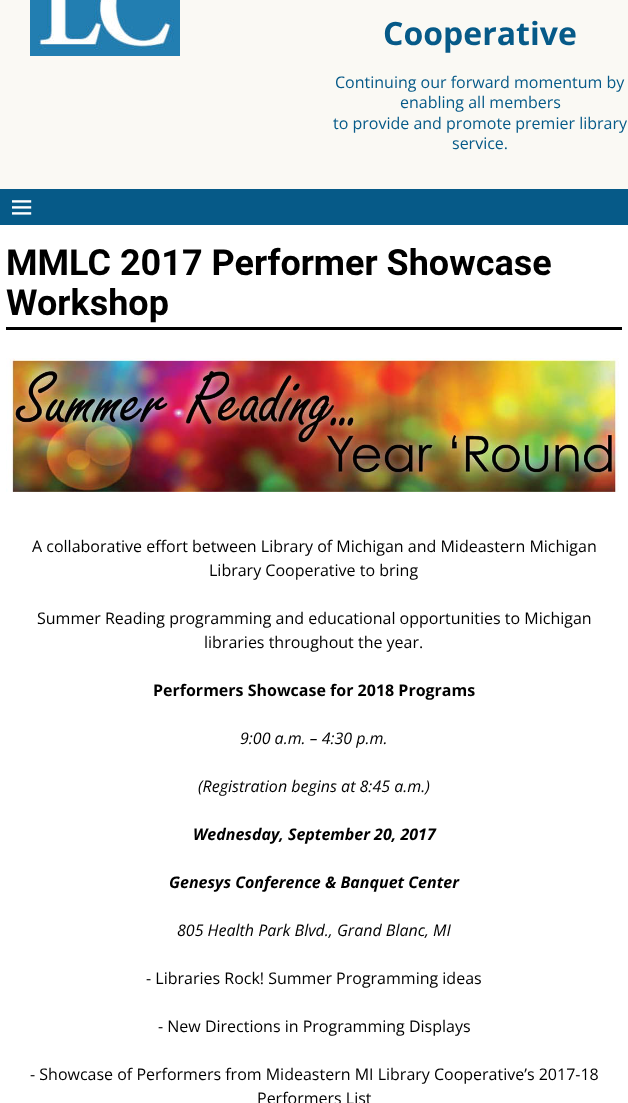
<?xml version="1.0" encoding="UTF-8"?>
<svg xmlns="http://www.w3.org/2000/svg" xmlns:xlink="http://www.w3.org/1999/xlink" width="628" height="1103">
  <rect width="100%" height="100%" fill="#ffffff" />
  <rect width="628" height="189" fill="#faf9f4" />
  <image x="30" y="0" width="150" height="56" xlink:href="image1.png" />
  <rect y="189" width="628" height="36" fill="#065a88" />
  <image x="12" y="200" width="20" height="15" xlink:href="image2.png" />
  <rect x="6" y="327" width="616" height="3" fill="#000000" />
  <image x="6" y="358" width="613" height="134" xlink:href="image3.png" />
  <text x="383" y="45" style="font-family: Open Sans; font-size: 32px; font-weight: bold; fill: #065a88">Cooperative</text>
  <text x="335" y="88" style="font-family: Open Sans; font-size: 16px; fill: #065a88">Continuing our forward momentum by</text>
  <text x="400" y="108" style="font-family: Open Sans; font-size: 16px; fill: #065a88">enabling all members</text>
  <text x="333" y="129" style="font-family: Open Sans; font-size: 16px; fill: #065a88">to provide and promote premier library</text>
  <text x="452" y="149" style="font-family: Open Sans; font-size: 16px; fill: #065a88">service.</text>
  <text x="6" y="275" style="font-family: Roboto; font-size: 36px; font-weight: bold; fill: #000000">MMLC 2017 Performer Showcase</text>
  <text x="6" y="315" style="font-family: Roboto; font-size: 36px; font-weight: bold; fill: #000000">Workshop</text>
  <text x="32" y="552" style="font-family: Open Sans; font-size: 16px; fill: #000000">A collaborative effort between Library of Michigan and Mideastern Michigan</text>
  <text x="209" y="576" style="font-family: Open Sans; font-size: 16px; fill: #000000">Library Cooperative to bring</text>
  <text x="37" y="624" style="font-family: Open Sans; font-size: 16px; fill: #000000">Summer Reading programming and educational opportunities to Michigan</text>
  <text x="204" y="648" style="font-family: Open Sans; font-size: 16px; fill: #000000">libraries throughout the year.</text>
  <text x="153" y="696" style="font-family: Open Sans; font-size: 16px; font-weight: bold; fill: #000000">Performers Showcase for 2018 Programs</text>
  <text x="240" y="744" style="font-family: Open Sans; font-size: 16px; font-style: italic; fill: #000000">9:00 a.m. – 4:30 p.m.</text>
  <text x="198" y="792" style="font-family: Open Sans; font-size: 16px; font-style: italic; fill: #000000">(Registration begins at 8:45 a.m.)</text>
  <text x="193" y="840" style="font-family: Open Sans; font-size: 16px; font-weight: bold; font-style: italic; fill: #000000">Wednesday, September 20, 2017</text>
  <text x="169" y="888" style="font-family: Open Sans; font-size: 16px; font-weight: bold; font-style: italic; fill: #000000">Genesys Conference &amp; Banquet Center</text>
  <text x="177" y="936" style="font-family: Open Sans; font-size: 16px; font-style: italic; fill: #000000">805 Health Park Blvd., Grand Blanc, MI</text>
  <text x="146" y="984" style="font-family: Open Sans; font-size: 16px; fill: #000000">- Libraries Rock! Summer Programming ideas</text>
  <text x="158" y="1032" style="font-family: Open Sans; font-size: 16px; fill: #000000">- New Directions in Programming Displays</text>
  <text x="30" y="1080" style="font-family: Open Sans; font-size: 16px; fill: #000000">- Showcase of Performers from Mideastern MI Library Cooperative’s 2017-18</text>
  <text x="257" y="1104" style="font-family: Open Sans; font-size: 16px; fill: #000000">Performers List</text>
</svg>
